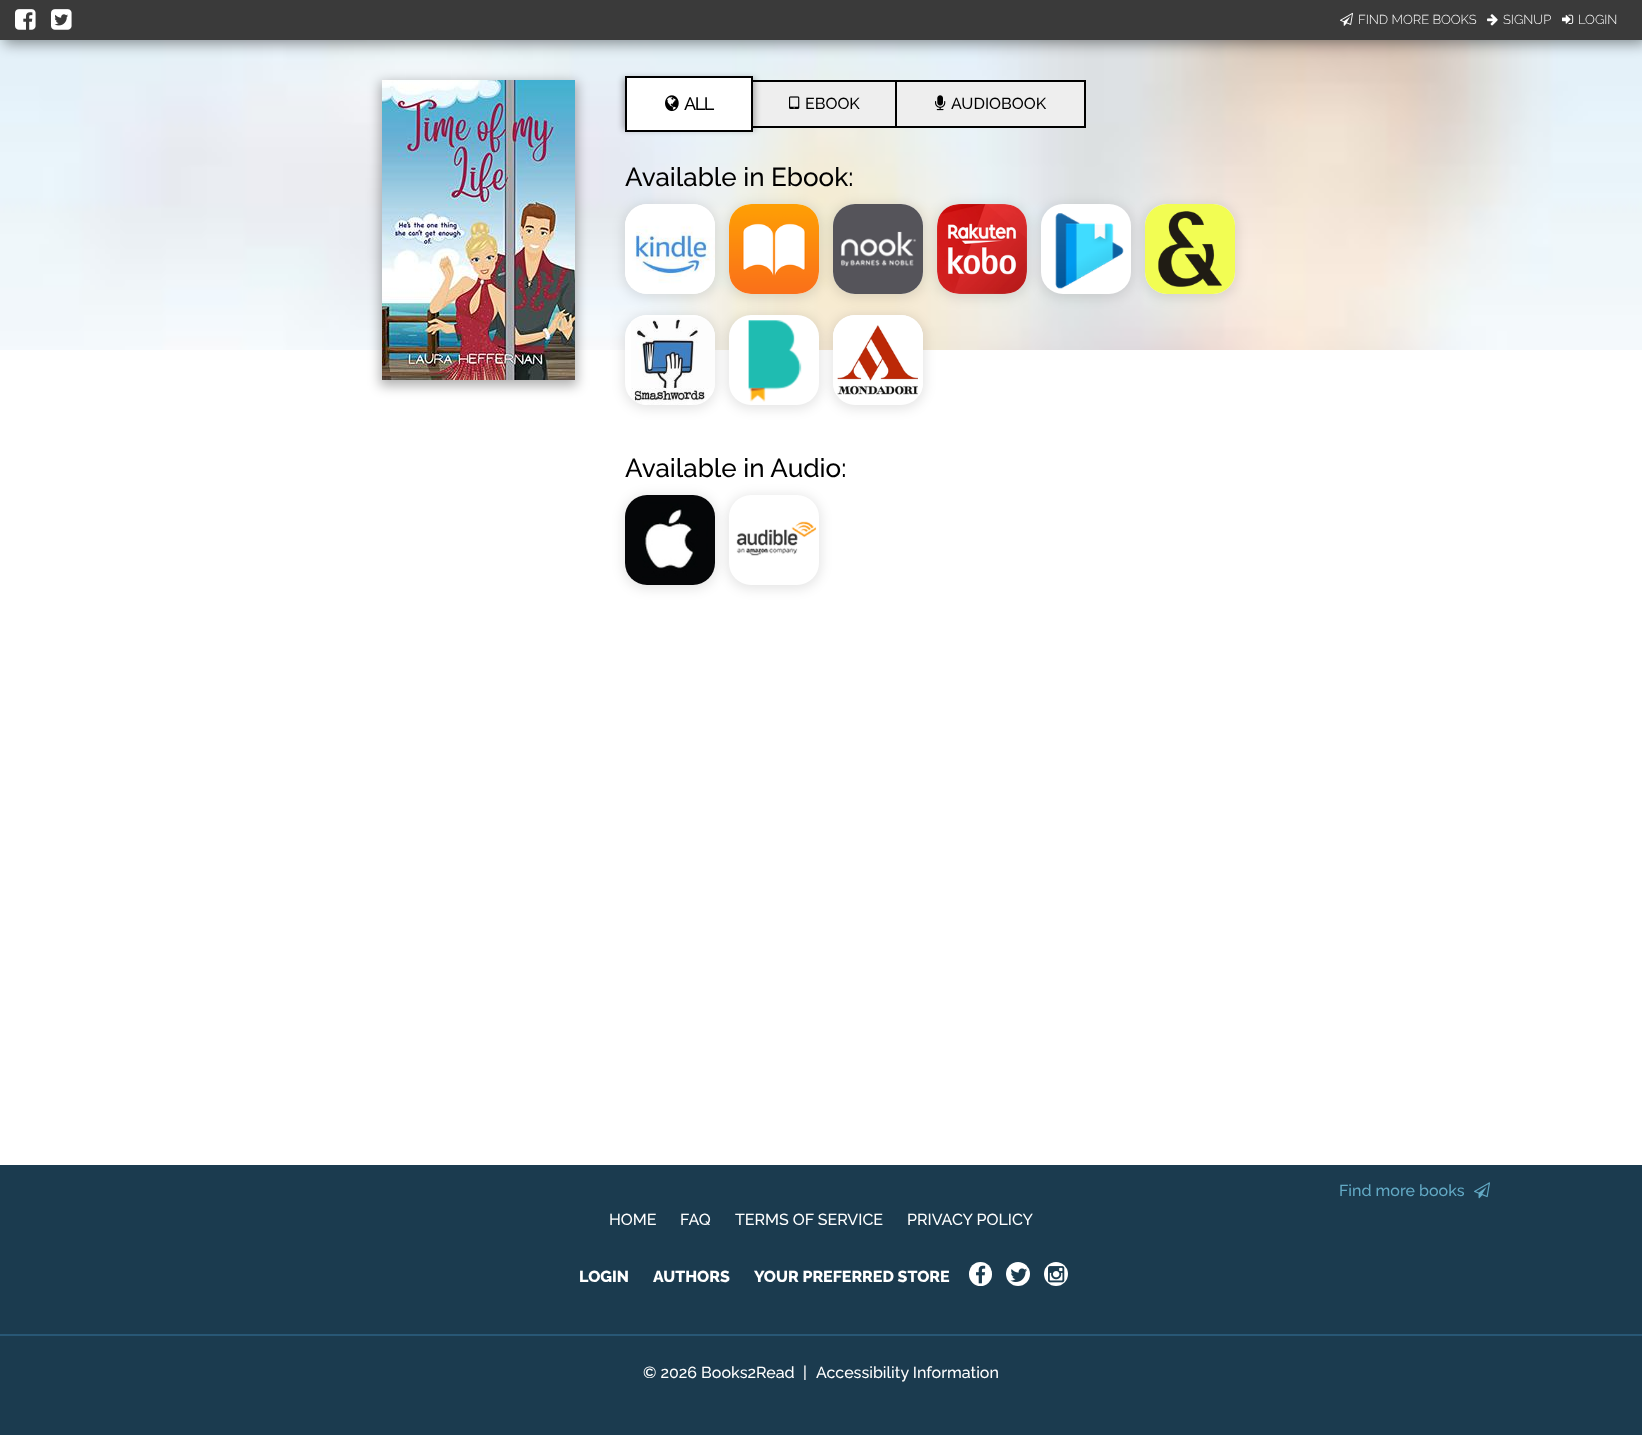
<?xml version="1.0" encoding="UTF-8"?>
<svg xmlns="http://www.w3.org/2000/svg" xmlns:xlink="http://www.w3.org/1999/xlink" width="1642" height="1435">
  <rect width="100%" height="100%" fill="#ffffff" />
  <image x="0" y="40" width="1642" height="310" xlink:href="image1.png" />
  <rect x="4" y="4" width="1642" height="40" fill="#000000" fill-opacity="0.4" filter="blur(7px)" />
  <rect width="1642" height="40" fill="#3a3a3a" />
  <image x="15" y="9" width="21" height="21" xlink:href="image2.png" />
  <image x="51" y="9" width="21" height="21" xlink:href="image3.png" />
  <image x="1340" y="12" width="13" height="14" xlink:href="image4.png" />
  <image x="1487" y="14" width="11" height="12" xlink:href="image5.png" />
  <image x="1562" y="14" width="12" height="10" xlink:href="image6.png" />
  <rect x="380" y="82" width="197" height="304" fill="#000000" fill-opacity="0.3" filter="blur(6px)" />
  <image x="382" y="80" width="193" height="300" xlink:href="image7.png" />
  <rect x="753" y="82" width="142" height="44" fill="#eeeeee" />
  <rect x="750" y="81" width="148" height="46" fill="none" stroke="#000000" stroke-width="2" />
  <rect x="623" y="78" width="132" height="52" fill="#000000" fill-opacity="0.3" filter="blur(3px)" />
  <rect x="626" y="77" width="126" height="54" fill="#ffffff" stroke="#000000" stroke-width="2" />
  <image x="665" y="95" width="14" height="17" xlink:href="image8.png" />
  <image x="789" y="96" width="11" height="13" xlink:href="image9.png" />
  <rect x="896" y="81" width="189" height="46" fill="#eeeeee" stroke="#000000" stroke-width="2" />
  <image x="935" y="95" width="11" height="16" xlink:href="image10.png" />
  <rect x="623" y="204" width="94" height="94" rx="24" fill="#000000" fill-opacity="0.1" filter="blur(6px)" />
  <rect x="625" y="204" width="90" height="90" rx="22" fill="#ffffff" />
  <image x="625" y="204" width="90" height="90" xlink:href="image11.png" />
  <rect x="727" y="204" width="94" height="94" rx="24" fill="#000000" fill-opacity="0.1" filter="blur(6px)" />
  <rect x="729" y="204" width="90" height="90" rx="22" fill="#ffffff" />
  <image x="729" y="204" width="90" height="90" xlink:href="image12.png" />
  <rect x="831" y="204" width="94" height="94" rx="24" fill="#000000" fill-opacity="0.1" filter="blur(6px)" />
  <rect x="833" y="204" width="90" height="90" rx="22" fill="#ffffff" />
  <image x="833" y="204" width="90" height="90" xlink:href="image13.png" />
  <rect x="935" y="204" width="94" height="94" rx="24" fill="#000000" fill-opacity="0.1" filter="blur(6px)" />
  <rect x="937" y="204" width="90" height="90" rx="22" fill="#ffffff" />
  <image x="937" y="204" width="90" height="90" xlink:href="image14.png" />
  <rect x="1039" y="204" width="94" height="94" rx="24" fill="#000000" fill-opacity="0.1" filter="blur(6px)" />
  <rect x="1041" y="204" width="90" height="90" rx="22" fill="#ffffff" />
  <rect x="1143" y="204" width="94" height="94" rx="24" fill="#000000" fill-opacity="0.1" filter="blur(6px)" />
  <rect x="1145" y="204" width="90" height="90" rx="22" fill="#ffffff" />
  <image x="1055" y="213" width="69" height="76" xlink:href="image15.png" />
  <image x="1145" y="204" width="90" height="90" xlink:href="image16.png" />
  <rect x="623" y="315" width="94" height="94" rx="24" fill="#000000" fill-opacity="0.1" filter="blur(6px)" />
  <rect x="625" y="315" width="90" height="90" rx="22" fill="#ffffff" />
  <image x="631" y="315" width="84" height="90" xlink:href="image17.png" />
  <rect x="727" y="315" width="94" height="94" rx="24" fill="#000000" fill-opacity="0.1" filter="blur(6px)" />
  <rect x="729" y="315" width="90" height="90" rx="22" fill="#ffffff" />
  <rect x="831" y="315" width="94" height="94" rx="24" fill="#000000" fill-opacity="0.1" filter="blur(6px)" />
  <rect x="833" y="315" width="90" height="90" rx="22" fill="#ffffff" />
  <image x="748" y="320" width="54" height="82" xlink:href="image18.png" />
  <image x="833" y="315" width="90" height="80" xlink:href="image19.png" />
  <rect x="623" y="495" width="94" height="94" rx="24" fill="#000000" fill-opacity="0.1" filter="blur(6px)" />
  <rect x="625" y="495" width="90" height="90" rx="22" fill="#ffffff" />
  <image x="625" y="495" width="90" height="90" xlink:href="image20.png" />
  <rect x="727" y="495" width="94" height="94" rx="24" fill="#000000" fill-opacity="0.1" filter="blur(6px)" />
  <rect x="729" y="495" width="90" height="90" rx="22" fill="#ffffff" />
  <image x="736" y="521" width="81" height="35" xlink:href="image21.png" />
  <rect y="1165" width="1642" height="270" fill="#1b3b4f" />
  <image x="1474" y="1182" width="16" height="17" xlink:href="image22.png" />
  <rect x="969" y="1262" width="23" height="24" rx="11.5" fill="#ffffff" />
  <image x="976" y="1265" width="10" height="19" xlink:href="image23.png" />
  <circle cx="1018" cy="1274" r="12" fill="#ffffff" />
  <image x="1010" y="1268" width="17" height="14" xlink:href="image24.png" />
  <circle cx="1056" cy="1274" r="12" fill="#ffffff" />
  <image x="1048" y="1266" width="17" height="17" xlink:href="image25.png" />
  <rect y="1334" width="1642" height="2" fill="#285775" />
  <text x="1358" y="24" style="font-family: Raleway; font-size: 13px; font-weight: 300; fill: #ffffff">FIND MORE BOOKS</text>
  <text x="1503" y="24" style="font-family: Raleway; font-size: 13px; font-weight: 300; fill: #ffffff">SIGNUP</text>
  <text x="1578" y="24" style="font-family: Raleway; font-size: 13px; font-weight: 300; fill: #ffffff">LOGIN</text>
  <text x="684" y="110" style="font-family: Raleway; font-size: 18px; font-weight: 500; letter-spacing: -1.5px; fill: #000000">ALL</text>
  <text x="805" y="109" style="font-family: Raleway; font-size: 16px; font-weight: 500; fill: #000000">EBOOK</text>
  <text x="951" y="109" style="font-family: Raleway; font-size: 16px; font-weight: 500; fill: #000000">AUDIOBOOK</text>
  <text x="625" y="186" style="font-family: Raleway; font-size: 26px; font-weight: 500; fill: #000000">Available in Ebook:</text>
  <text x="625" y="477" style="font-family: Raleway; font-size: 26px; font-weight: 500; fill: #000000">Available in Audio:</text>
  <text x="1339" y="1196" style="font-family: Raleway; font-size: 16px; font-weight: 500; fill: #63aac5">Find more books</text>
  <text x="609" y="1225" style="font-family: Raleway; font-size: 16px; font-weight: 500; fill: #ffffff">HOME</text>
  <text x="680" y="1225" style="font-family: Raleway; font-size: 16px; font-weight: 500; fill: #ffffff">FAQ</text>
  <text x="735" y="1225" style="font-family: Raleway; font-size: 16px; font-weight: 500; fill: #ffffff">TERMS OF SERVICE</text>
  <text x="907" y="1225" style="font-family: Raleway; font-size: 16px; font-weight: 500; fill: #ffffff">PRIVACY POLICY</text>
  <text x="579" y="1282" style="font-family: Raleway; font-size: 16px; font-weight: 800; fill: #ffffff">LOGIN</text>
  <text x="653" y="1282" style="font-family: Raleway; font-size: 16px; font-weight: 800; fill: #ffffff">AUTHORS</text>
  <text x="754" y="1282" style="font-family: Raleway; font-size: 16px; font-weight: 800; fill: #ffffff">YOUR PREFERRED STORE</text>
  <text x="643" y="1378" style="font-family: Raleway; font-size: 16px; font-weight: 500; fill: #ffffff">© 2026 Books2Read</text>
  <text x="803" y="1378" style="font-family: Raleway; font-size: 16px; font-weight: 500; fill: #ffffff">|</text>
  <text x="816" y="1378" style="font-family: Raleway; font-size: 16px; font-weight: 500; fill: #ffffff">Accessibility Information</text>
</svg>
